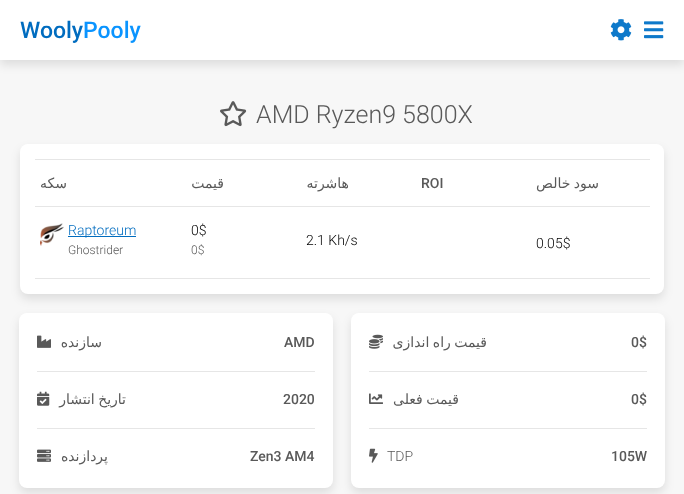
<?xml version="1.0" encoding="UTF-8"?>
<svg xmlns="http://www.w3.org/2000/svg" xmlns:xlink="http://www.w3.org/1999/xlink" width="684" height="494">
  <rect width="100%" height="100%" fill="#f7f7f7" />
  <rect y="5" width="684" height="60" fill="#000000" fill-opacity="0.1" filter="blur(5px)" />
  <rect width="684" height="60" fill="#ffffff" />
  <image x="610" y="19" width="22" height="22" xlink:href="image1.png" />
  <image x="644" y="21" width="20" height="18" xlink:href="image2.png" />
  <image x="220" y="101" width="27" height="26" xlink:href="image3.png" />
  <rect x="20" y="149" width="644" height="150" rx="8" fill="#000000" fill-opacity="0.1" filter="blur(5px)" />
  <rect x="20" y="144" width="644" height="150" rx="8" fill="#ffffff" />
  <rect x="35" y="159" width="615" height="1" fill="#e6e6e6" />
  <rect x="35" y="206" width="615" height="1" fill="#e6e6e6" />
  <rect x="35" y="278" width="615" height="1" fill="#e6e6e6" />
  <image x="40" y="223" width="24" height="23" xlink:href="image4.png" />
  <rect x="68" y="236" width="68" height="1" fill="#006cbf" />
  <rect x="19" y="318" width="314" height="175" rx="8" fill="#000000" fill-opacity="0.1" filter="blur(5px)" />
  <rect x="19" y="313" width="314" height="175" rx="8" fill="#ffffff" />
  <rect x="37" y="371" width="278" height="1" fill="#e6e6e6" />
  <image x="37" y="335" width="14" height="13" xlink:href="image5.png" />
  <rect x="37" y="428" width="278" height="1" fill="#e6e6e6" />
  <image x="37" y="391" width="13" height="15" xlink:href="image6.png" />
  <image x="37" y="449" width="14" height="13" xlink:href="image7.png" />
  <rect x="351" y="318" width="314" height="175" rx="8" fill="#000000" fill-opacity="0.1" filter="blur(5px)" />
  <rect x="351" y="313" width="314" height="175" rx="8" fill="#ffffff" />
  <rect x="369" y="371" width="278" height="1" fill="#e6e6e6" />
  <image x="369" y="334" width="14" height="15" xlink:href="image8.png" />
  <rect x="369" y="428" width="278" height="1" fill="#e6e6e6" />
  <image x="369" y="393" width="14" height="11" xlink:href="image9.png" />
  <image x="369" y="448" width="9" height="15" xlink:href="image10.png" />
  <text x="20" y="38" style="font-family: Roboto; font-size: 23px; font-weight: 500; fill: #006cbf">Wooly</text>
  <text x="83" y="38" style="font-family: Roboto; font-size: 23px; font-weight: 500; fill: #0a94ff">Pooly</text>
  <text x="256" y="123" style="font-family: Roboto; font-size: 25px; font-weight: 300; fill: #595959">AMD Ryzen9 5800X</text>
  <text x="67" y="188" style="font-family: DejaVu Sans; font-size: 14px; direction: rtl; fill: #595959">سکه</text>
  <text x="224" y="188" style="font-family: DejaVu Sans; font-size: 14px; direction: rtl; fill: #595959">قیمت</text>
  <text x="349" y="188" style="font-family: DejaVu Sans; font-size: 14px; direction: rtl; fill: #595959">هاشرته</text>
  <text x="421" y="188" style="font-family: Roboto; font-size: 14px; font-weight: 500; fill: #595959">ROI</text>
  <text x="599" y="188" word-spacing="-1" style="font-family: DejaVu Sans; font-size: 14px; direction: rtl; fill: #595959">سود خالص</text>
  <text x="68" y="235" style="font-family: Roboto; font-size: 14px; font-weight: 300; fill: #006cbf">Raptoreum</text>
  <text x="68" y="254" style="font-family: Roboto; font-size: 12px; font-weight: 300; fill: #595959">Ghostrider</text>
  <text x="191" y="235" style="font-family: Roboto; font-size: 14px; font-weight: 300; fill: #000000">0$</text>
  <text x="191" y="254" style="font-family: Roboto; font-size: 12px; font-weight: 300; fill: #595959">0$</text>
  <text x="306" y="245" style="font-family: Roboto; font-size: 14px; font-weight: 300; fill: #000000">2.1 Kh/s</text>
  <text x="536" y="248" style="font-family: Roboto; font-size: 14px; font-weight: 300; fill: #000000">0.05$</text>
  <text x="102" y="347" style="font-family: DejaVu Sans; font-size: 14px; direction: rtl; fill: #595959">سازنده</text>
  <text x="284" y="347" style="font-family: Roboto; font-size: 14px; font-weight: 500; fill: #595959">AMD</text>
  <text x="126" y="404" word-spacing="-1" style="font-family: DejaVu Sans; font-size: 14px; direction: rtl; fill: #595959">تاریخ انتشار</text>
  <text x="283" y="404" style="font-family: Roboto; font-size: 14px; font-weight: 500; fill: #595959">2020</text>
  <text x="108" y="461" style="font-family: DejaVu Sans; font-size: 14px; direction: rtl; fill: #595959">پردازنده</text>
  <text x="250" y="461" style="font-family: Roboto; font-size: 14px; font-weight: 500; fill: #595959">Zen3 AM4</text>
  <text x="487" y="347" word-spacing="-1" style="font-family: DejaVu Sans; font-size: 14px; direction: rtl; fill: #595959">قیمت راه اندازی</text>
  <text x="631" y="347" style="font-family: Roboto; font-size: 14px; font-weight: 500; fill: #595959">0$</text>
  <text x="459" y="404" word-spacing="-1" style="font-family: DejaVu Sans; font-size: 14px; direction: rtl; fill: #595959">قیمت فعلی</text>
  <text x="631" y="404" style="font-family: Roboto; font-size: 14px; font-weight: 500; fill: #595959">0$</text>
  <text x="387" y="461" style="font-family: Roboto; font-size: 14px; font-weight: 300; fill: #595959">TDP</text>
  <text x="611" y="461" style="font-family: Roboto; font-size: 14px; font-weight: 500; fill: #595959">105W</text>
</svg>
